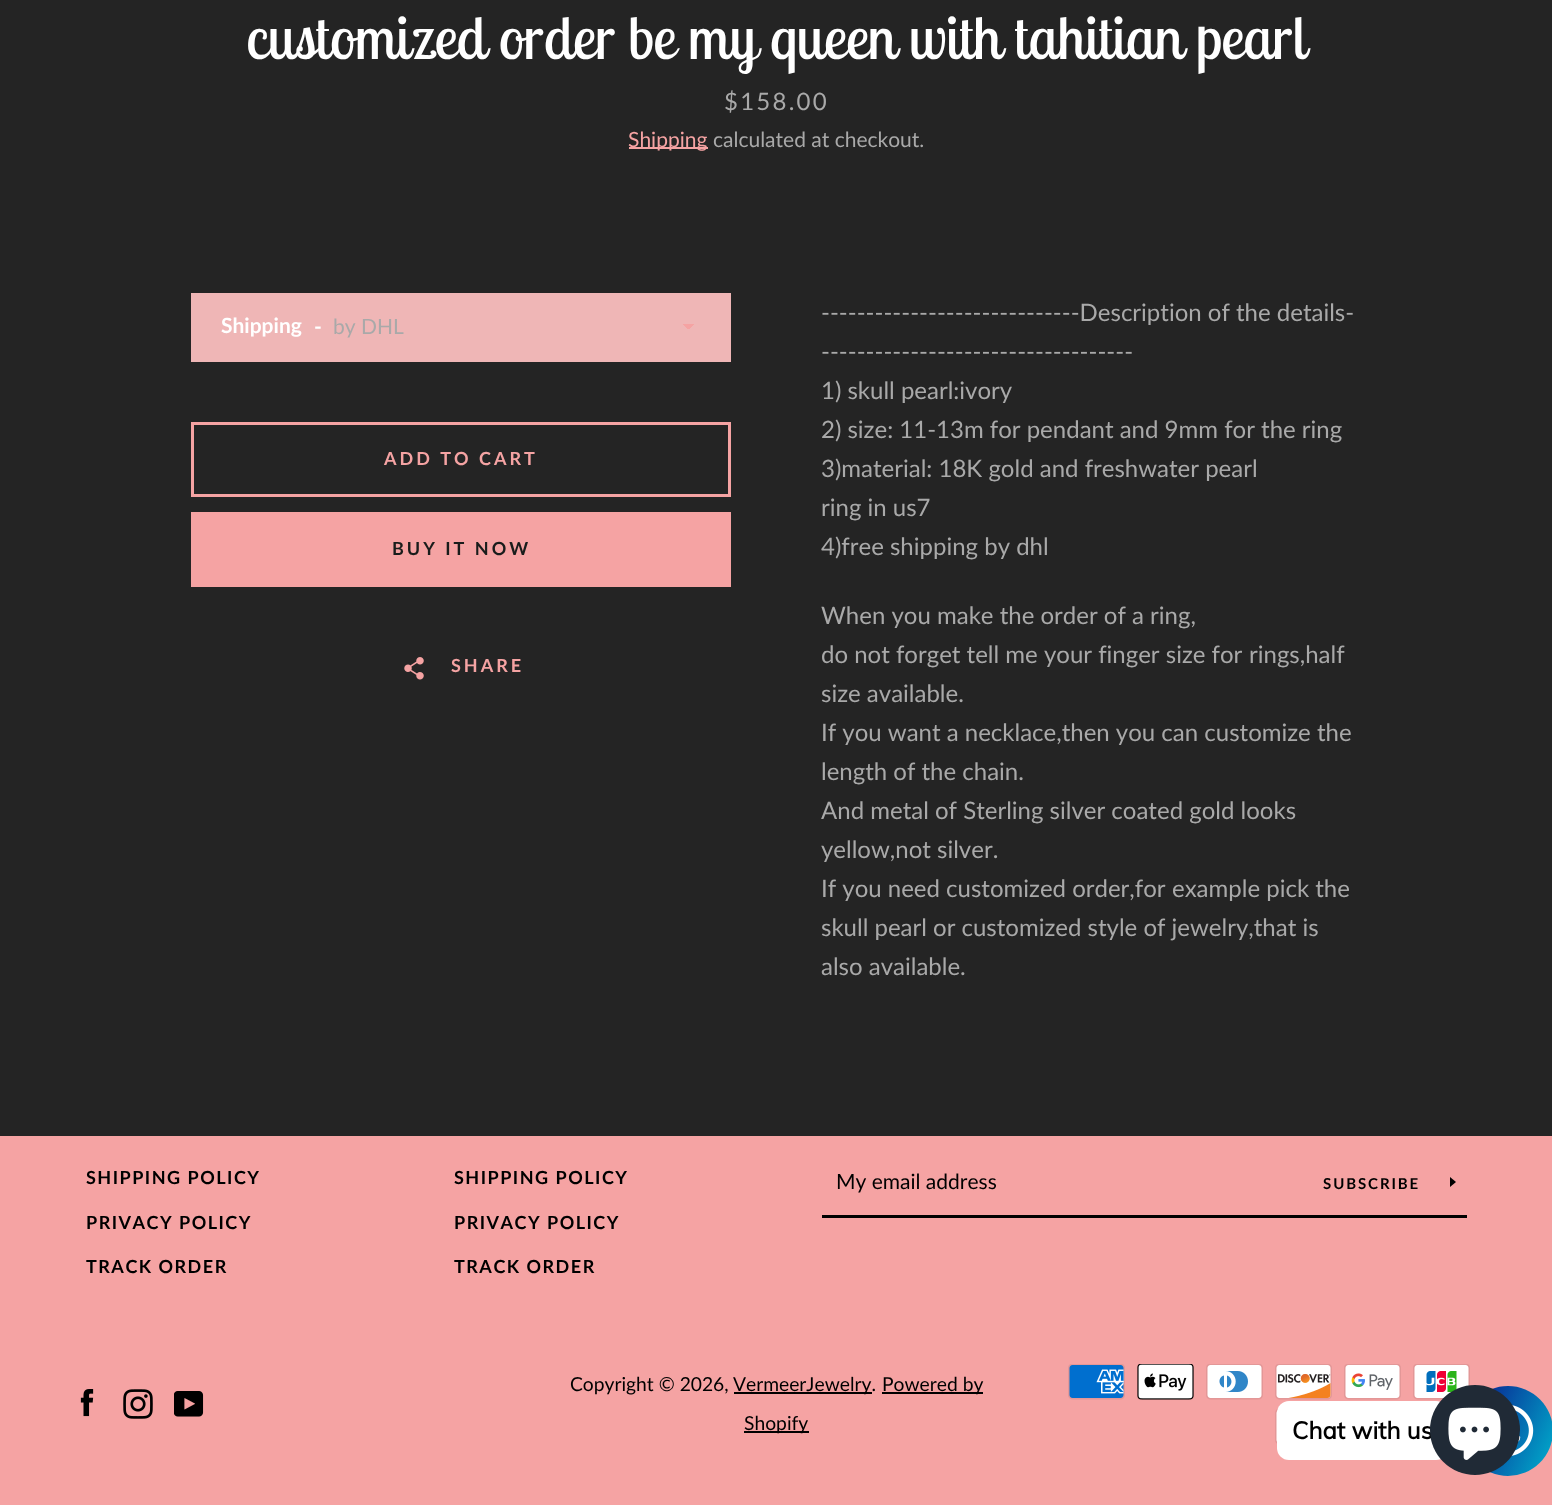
<?xml version="1.0" encoding="UTF-8"?>
<svg xmlns="http://www.w3.org/2000/svg" xmlns:xlink="http://www.w3.org/1999/xlink" width="1552" height="1505">
  <style>*{font-kerning:none!important;font-variant-ligatures:none!important}</style>
  <defs>
    <linearGradient id="g1" gradientUnits="userSpaceOnUse" x1="689" y1="324" x2="695" y2="330"><stop offset="0.5" stop-color="#f5a3a3" /><stop offset="0.5" stop-color="#efb6b6" /></linearGradient>
    <linearGradient id="g2" gradientUnits="userSpaceOnUse" x1="683" y1="330" x2="689" y2="324"><stop offset="0.5" stop-color="#efb6b6" /><stop offset="0.5" stop-color="#f5a3a3" /></linearGradient>
    <linearGradient id="g3" gradientUnits="userSpaceOnUse" x1="1453" y1="1406" x2="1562" y2="1456"><stop offset="0" stop-color="#0a0e88" /><stop offset="1" stop-color="#00b1ce" /></linearGradient>
  </defs>
  <rect width="100%" height="100%" fill="#f5a3a3" />
  <rect width="1552" height="1136" fill="#242424" />
  <rect x="629" y="147" width="79" height="2" fill="#f5a3a3" />
  <rect x="191" y="293" width="540" height="69" fill="#efb6b6" />
  <rect x="689" y="324" width="6" height="5" fill="url(#g1)" />
  <rect x="683" y="324" width="6" height="5" fill="url(#g2)" />
  <rect x="192.5" y="423.5" width="537" height="72" fill="none" stroke="#f5a3a3" stroke-width="3" />
  <rect x="191" y="512" width="540" height="75" fill="#f5a3a3" />
  <image x="404" y="657" width="20" height="23" xlink:href="image1.png" />
  <rect x="822" y="1215" width="645" height="3" fill="#000000" />
  <path d="M 1456 1182 l -6 5 v -10 z" fill="#000000" />
  <image x="80" y="1389" width="14" height="28" xlink:href="image2.png" />
  <image x="123" y="1389" width="30" height="30" xlink:href="image3.png" />
  <image x="174" y="1391" width="30" height="26" xlink:href="image4.png" />
  <rect x="734" y="1392" width="138" height="2" fill="#000000" />
  <rect x="882" y="1392" width="101" height="2" fill="#000000" />
  <rect x="744" y="1431" width="65" height="2" fill="#000000" />
  <image x="1068" y="1364" width="57" height="36" xlink:href="image5.png" />
  <image x="1137" y="1364" width="57" height="36" xlink:href="image6.png" />
  <image x="1206" y="1364" width="57" height="36" xlink:href="image7.png" />
  <image x="1275" y="1364" width="57" height="36" xlink:href="image8.png" />
  <image x="1344" y="1364" width="57" height="36" xlink:href="image9.png" />
  <image x="1413" y="1364" width="57" height="36" xlink:href="image10.png" />
  <image x="1275" y="1409" width="3" height="35" xlink:href="image11.png" />
  <circle cx="1508" cy="1431" r="45" fill="url(#g3)" />
  <rect x="1277" y="1401" width="171" height="59" rx="12" fill="#ffffff" />
  <image x="1511" y="1405" width="23" height="51" xlink:href="image13.png" />
  <text x="246" y="59" style="font-family: Lobster Two; font-size: 60px; fill: #ffffff">customized order be my queen with tahitian pearl</text>
  <text x="724" y="110" style="font-family: Lato; font-size: 24px; letter-spacing: 2.25px; fill: #a9a9a9">$158.00</text>
  <text x="628" y="147" style="font-family: Lato; font-size: 21px; fill: #f5a3a3">Shipping</text>
  <text x="713" y="147" style="font-family: Lato; font-size: 21px; fill: #a9a9a9">calculated at checkout.</text>
  <text x="221" y="333" style="font-family: Lato; font-size: 21px; font-weight: bold; fill: #ffffff">Shipping</text>
  <text x="314" y="334" style="font-family: Lato; font-size: 21px; font-weight: bold; fill: #ffffff">-</text>
  <text x="333" y="334" style="font-family: Lato; font-size: 21px; fill: #a9a9a9">by DHL</text>
  <text x="384" y="465" style="font-family: Lato; font-size: 18px; font-weight: bold; letter-spacing: 3px; fill: #f5a3a3">ADD TO CART</text>
  <text x="392" y="555" style="font-family: Lato; font-size: 18px; font-weight: bold; letter-spacing: 3px; fill: #191c1b">BUY IT NOW</text>
  <text x="451" y="672" style="font-family: Lato; font-size: 18px; font-weight: bold; letter-spacing: 3px; fill: #f5a3a3">SHARE</text>
  <text x="821" y="321" style="font-family: Lato; font-size: 24px; fill: #a9a9a9">-----------------------------Description of the details-</text>
  <text x="821" y="360" style="font-family: Lato; font-size: 24px; fill: #a9a9a9">-----------------------------------</text>
  <text x="821" y="399" style="font-family: Lato; font-size: 24px; fill: #a9a9a9">1) skull pearl:ivory</text>
  <text x="821" y="438" style="font-family: Lato; font-size: 24px; fill: #a9a9a9">2) size: 11-13m for pendant and 9mm for the ring</text>
  <text x="821" y="477" style="font-family: Lato; font-size: 24px; fill: #a9a9a9">3)material: 18K gold and freshwater pearl</text>
  <text x="821" y="516" style="font-family: Lato; font-size: 24px; fill: #a9a9a9">ring in us7</text>
  <text x="821" y="555" style="font-family: Lato; font-size: 24px; fill: #a9a9a9">4)free shipping by dhl</text>
  <text x="821" y="624" style="font-family: Lato; font-size: 24px; fill: #a9a9a9">When you make the order of a ring,</text>
  <text x="821" y="663" style="font-family: Lato; font-size: 24px; fill: #a9a9a9">do not forget tell me your finger size for</text>
  <text x="1249" y="663" style="font-family: Lato; font-size: 24px; fill: #a9a9a9">rings,half</text>
  <text x="821" y="702" style="font-family: Lato; font-size: 24px; fill: #a9a9a9">size available.</text>
  <text x="821" y="741" style="font-family: Lato; font-size: 24px; fill: #a9a9a9">If you want a necklace,then you can customize the</text>
  <text x="821" y="780" style="font-family: Lato; font-size: 24px; fill: #a9a9a9">length of the chain.</text>
  <text x="821" y="819" style="font-family: Lato; font-size: 24px; fill: #a9a9a9">And metal of Sterling silver coated gold looks</text>
  <text x="821" y="858" style="font-family: Lato; font-size: 24px; fill: #a9a9a9">yellow,not silver.</text>
  <text x="821" y="897" style="font-family: Lato; font-size: 24px; fill: #a9a9a9">If you need customized order,for</text>
  <text x="1172" y="897" style="font-family: Lato; font-size: 24px; fill: #a9a9a9">example pick the</text>
  <text x="821" y="936" style="font-family: Lato; font-size: 24px; fill: #a9a9a9">skull pearl or customized style of jewelry,that is</text>
  <text x="821" y="975" style="font-family: Lato; font-size: 24px; fill: #a9a9a9">also available.</text>
  <text x="86" y="1184" style="font-family: Lato; font-size: 18px; font-weight: bold; letter-spacing: 1.5px; fill: #000000">SHIPPING POLICY</text>
  <text x="86" y="1229" style="font-family: Lato; font-size: 18px; font-weight: bold; letter-spacing: 1.5px; fill: #000000">PRIVACY POLICY</text>
  <text x="86" y="1273" style="font-family: Lato; font-size: 18px; font-weight: bold; letter-spacing: 1.5px; fill: #000000">TRACK ORDER</text>
  <text x="454" y="1184" style="font-family: Lato; font-size: 18px; font-weight: bold; letter-spacing: 1.5px; fill: #000000">SHIPPING POLICY</text>
  <text x="454" y="1229" style="font-family: Lato; font-size: 18px; font-weight: bold; letter-spacing: 1.5px; fill: #000000">PRIVACY POLICY</text>
  <text x="454" y="1273" style="font-family: Lato; font-size: 18px; font-weight: bold; letter-spacing: 1.5px; fill: #000000">TRACK ORDER</text>
  <text x="836" y="1189" style="font-family: Lato; font-size: 21px; fill: #000000">My email address</text>
  <text x="1323" y="1189" style="font-family: Lato; font-size: 15px; font-weight: bold; letter-spacing: 1.9px; fill: #000000">SUBSCRIBE</text>
  <text x="570" y="1391" style="font-family: Lato; font-size: 19.25px; fill: #000000">Copyright © 2026,</text>
  <text x="733" y="1391" style="font-family: Lato; font-size: 19.25px; fill: #000000">VermeerJewelry.</text>
  <text x="882" y="1391" style="font-family: Lato; font-size: 19.25px; fill: #000000">Powered by</text>
  <text x="744" y="1430" style="font-family: Lato; font-size: 19.25px; fill: #000000">Shopify</text>
  <text x="1292" y="1439" style="font-family: Muli; font-size: 24px; font-weight: bold; fill: #000000">Chat with us</text>
  <circle cx="1475" cy="1430" r="45" fill="#202a36" />
  <image x="1448" y="1407" width="53" height="53" xlink:href="image12.png" />
</svg>
